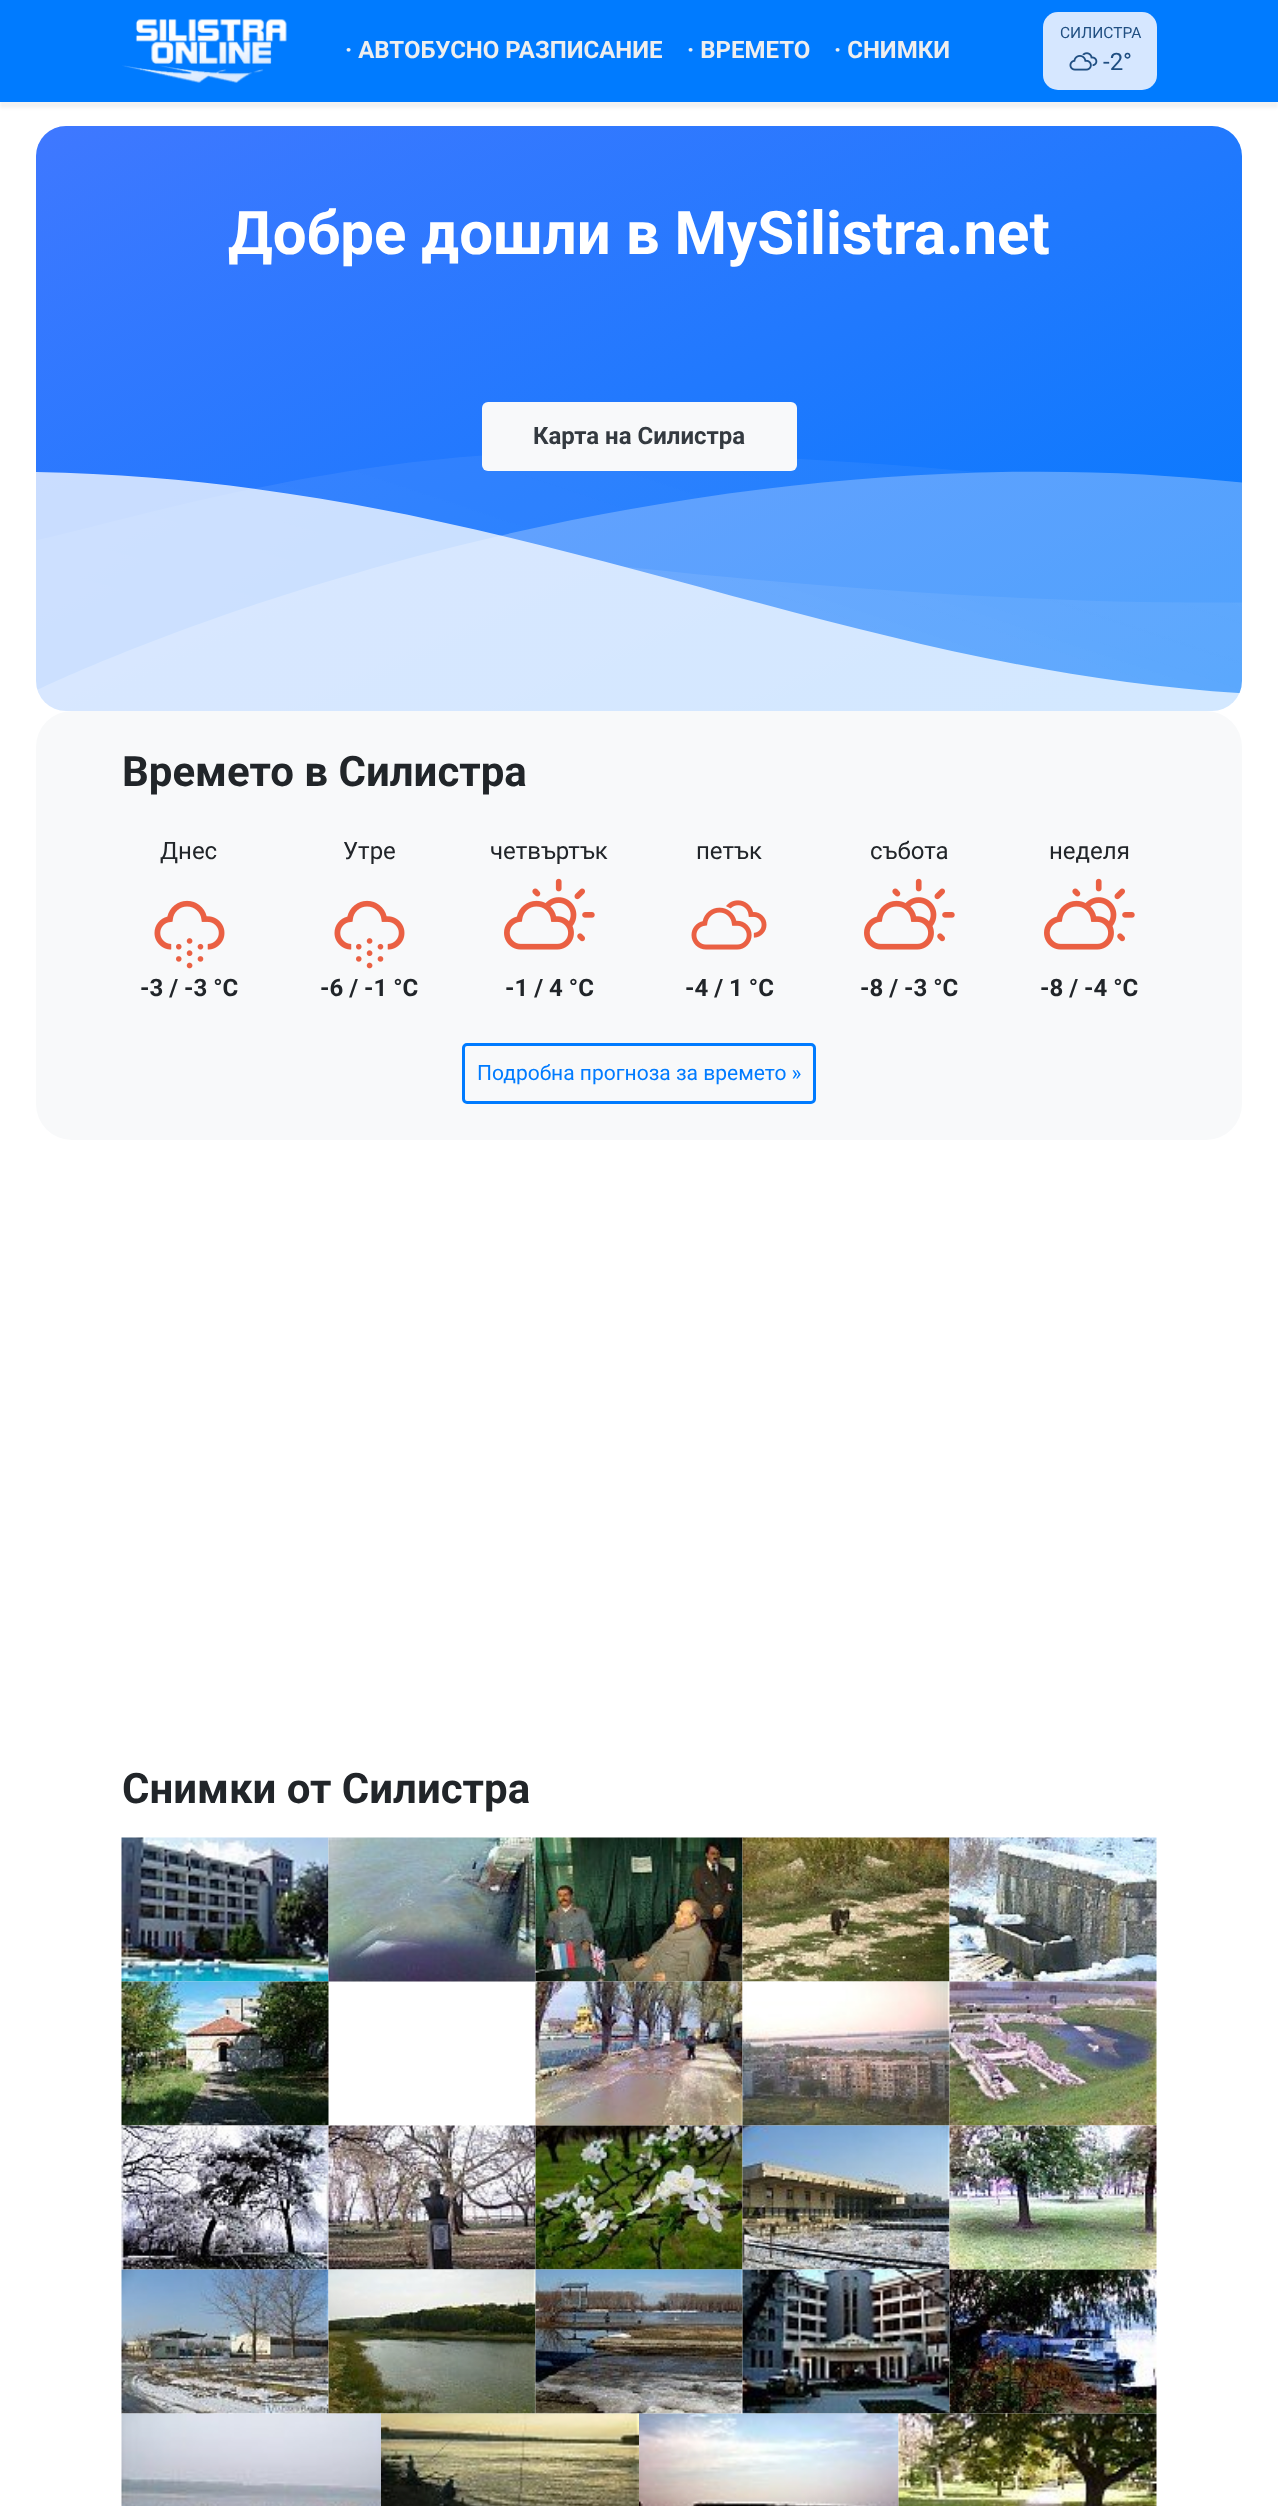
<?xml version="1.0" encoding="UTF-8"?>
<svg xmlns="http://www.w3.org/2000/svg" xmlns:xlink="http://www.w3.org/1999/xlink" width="1278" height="2506">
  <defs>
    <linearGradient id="g1" gradientUnits="userSpaceOnUse" x1="859" y1="890" x2="419" y2="-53"><stop offset="0" stop-color="#027afd" /><stop offset="1" stop-color="#3f78ff" /></linearGradient>
  </defs>
  <rect width="100%" height="100%" fill="#ffffff" />
  <rect y="6" width="1278" height="102" fill="#000000" fill-opacity="0.05" filter="blur(1.5px)" />
  <rect width="1278" height="102" fill="#007bff" />
  <image x="122" y="19" width="165" height="64" xlink:href="image1.png" />
  <rect x="1043" y="12" width="114" height="78" rx="15" fill="#d6e7ff" />
  <image x="1069" y="52" width="29" height="19" xlink:href="image2.png" />
  <rect x="36" y="126" width="1206" height="585" rx="30" fill="url(#g1)" />
  <image x="36" y="455" width="1206" height="256" xlink:href="image3.png" />
  <rect x="482" y="402" width="315" height="69" rx="6" fill="#f8f9fa" />
  <image x="36" y="472" width="1206" height="239" xlink:href="image4.png" />
  <rect x="36" y="711" width="1206" height="429" rx="36" fill="#f8f9fa" />
  <image x="154" y="900" width="71" height="69" xlink:href="image5.png" />
  <image x="334" y="900" width="71" height="69" xlink:href="image5.png" />
  <image x="504" y="878" width="91" height="72" xlink:href="image6.png" />
  <image x="691" y="900" width="76" height="50" xlink:href="image7.png" />
  <image x="864" y="878" width="91" height="72" xlink:href="image6.png" />
  <image x="1044" y="878" width="91" height="72" xlink:href="image6.png" />
  <rect x="463.5" y="1044.5" width="351" height="58" rx="3.5" fill="none" stroke="#007bff" stroke-width="3" />
  <image x="121" y="1837" width="208" height="145" xlink:href="image8.png" />
  <image x="328" y="1837" width="208" height="145" xlink:href="image9.png" />
  <image x="535" y="1837" width="208" height="145" xlink:href="image10.png" />
  <image x="742" y="1837" width="208" height="145" xlink:href="image11.png" />
  <image x="949" y="1837" width="208" height="145" xlink:href="image12.png" />
  <image x="121" y="1981" width="208" height="145" xlink:href="image13.png" />
  <image x="535" y="1981" width="208" height="145" xlink:href="image14.png" />
  <image x="742" y="1981" width="208" height="145" xlink:href="image15.png" />
  <image x="949" y="1981" width="208" height="145" xlink:href="image16.png" />
  <image x="121" y="2125" width="208" height="145" xlink:href="image17.png" />
  <image x="328" y="2125" width="208" height="145" xlink:href="image18.png" />
  <image x="535" y="2125" width="208" height="145" xlink:href="image19.png" />
  <image x="742" y="2125" width="208" height="145" xlink:href="image20.png" />
  <image x="949" y="2125" width="208" height="145" xlink:href="image21.png" />
  <image x="121" y="2269" width="208" height="145" xlink:href="image22.png" />
  <image x="328" y="2269" width="208" height="145" xlink:href="image23.png" />
  <image x="535" y="2269" width="208" height="145" xlink:href="image24.png" />
  <image x="742" y="2269" width="208" height="145" xlink:href="image25.png" />
  <image x="949" y="2269" width="208" height="145" xlink:href="image26.png" />
  <image x="121" y="2413" width="260" height="93" xlink:href="image27.png" />
  <image x="381" y="2413" width="258" height="93" xlink:href="image28.png" />
  <image x="639" y="2413" width="260" height="93" xlink:href="image29.png" />
  <image x="898" y="2413" width="259" height="93" xlink:href="image30.png" />
  <text x="345" y="58" style="font-family: Roboto; font-size: 24px; font-weight: bold; fill: #eeeeee">· АВТОБУСНО РАЗПИСАНИЕ</text>
  <text x="687" y="58" style="font-family: Roboto; font-size: 24px; font-weight: bold; fill: #eeeeee">· ВРЕМЕТО</text>
  <text x="834" y="58" style="font-family: Roboto; font-size: 24px; font-weight: bold; fill: #eeeeee">· СНИМКИ</text>
  <text x="1060" y="38" style="font-family: Roboto; font-size: 15.5px; fill: #204f82">СИЛИСТРА</text>
  <text x="1103" y="70" style="font-family: Roboto; font-size: 24px; fill: #204f82">-2°</text>
  <text x="228" y="254" style="font-family: Roboto; font-size: 60px; font-weight: bold; fill: #ffffff">Добре дошли в MySilistra.net</text>
  <text x="533" y="444" style="font-family: Roboto; font-size: 24px; font-weight: bold; fill: #343a40">Карта на Силистра</text>
  <text x="122" y="786" style="font-family: Roboto; font-size: 42px; font-weight: bold; fill: #212529">Времето в Силистра</text>
  <text x="160" y="859" style="font-family: Roboto; font-size: 24px; fill: #212529">Днес</text>
  <text x="140" y="996" style="font-family: Roboto; font-size: 24px; font-weight: bold; fill: #212529">-3 / -3 °C</text>
  <text x="343" y="859" style="font-family: Roboto; font-size: 24px; fill: #212529">Утре</text>
  <text x="320" y="996" style="font-family: Roboto; font-size: 24px; font-weight: bold; fill: #212529">-6 / -1 °C</text>
  <text x="490" y="859" style="font-family: Roboto; font-size: 24px; fill: #212529">четвъртък</text>
  <text x="505" y="996" style="font-family: Roboto; font-size: 24px; font-weight: bold; fill: #212529">-1 / 4 °C</text>
  <text x="696" y="859" style="font-family: Roboto; font-size: 24px; fill: #212529">петък</text>
  <text x="685" y="996" style="font-family: Roboto; font-size: 24px; font-weight: bold; fill: #212529">-4 / 1 °C</text>
  <text x="870" y="859" style="font-family: Roboto; font-size: 24px; fill: #212529">събота</text>
  <text x="860" y="996" style="font-family: Roboto; font-size: 24px; font-weight: bold; fill: #212529">-8 / -3 °C</text>
  <text x="1049" y="859" style="font-family: Roboto; font-size: 24px; fill: #212529">неделя</text>
  <text x="1040" y="996" style="font-family: Roboto; font-size: 24px; font-weight: bold; fill: #212529">-8 / -4 °C</text>
  <text x="477" y="1080" style="font-family: Roboto; font-size: 21px; fill: #007bff">Подробна прогноза за времето »</text>
  <text x="122" y="1803" style="font-family: Roboto; font-size: 42px; font-weight: bold; fill: #212529">Снимки от Силистра</text>
</svg>
